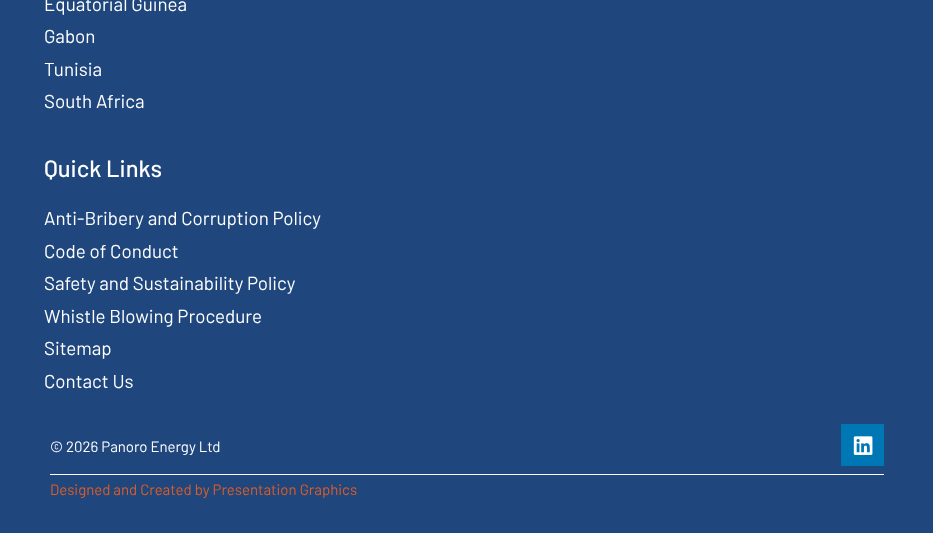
<?xml version="1.0" encoding="UTF-8"?>
<svg xmlns="http://www.w3.org/2000/svg" xmlns:xlink="http://www.w3.org/1999/xlink" width="933" height="537">
  <rect width="100%" height="100%" fill="#ffffff" />
  <rect width="933" height="533" fill="#1f477d" />
  <rect x="841" y="424" width="43" height="42" fill="#0077b5" />
  <image x="853" y="436" width="20" height="19" xlink:href="image1.png" />
  <rect x="50" y="474" width="834" height="1" fill="#ffffff" />
  <text x="44" y="11" style="font-family: Barlow; font-size: 18.75px; fill: #ffffff">Equatorial Guinea</text>
  <text x="44" y="43" style="font-family: Barlow; font-size: 18.75px; fill: #ffffff">Gabon</text>
  <text x="44" y="76" style="font-family: Barlow; font-size: 18.75px; fill: #ffffff">Tunisia</text>
  <text x="44" y="108" style="font-family: Barlow; font-size: 18.75px; fill: #ffffff">South Africa</text>
  <text x="44" y="177" style="font-family: Barlow; font-size: 23.75px; font-weight: 500; fill: #ffffff">Quick Links</text>
  <text x="44" y="225" style="font-family: Barlow; font-size: 18.75px; fill: #ffffff">Anti-Bribery and Corruption Policy</text>
  <text x="44" y="258" style="font-family: Barlow; font-size: 18.75px; fill: #ffffff">Code of Conduct</text>
  <text x="44" y="290" style="font-family: Barlow; font-size: 18.75px; fill: #ffffff">Safety and Sustainability Policy</text>
  <text x="44" y="323" style="font-family: Barlow; font-size: 18.75px; fill: #ffffff">Whistle Blowing Procedure</text>
  <text x="44" y="355" style="font-family: Barlow; font-size: 18.75px; fill: #ffffff">Sitemap</text>
  <text x="44" y="388" style="font-family: Barlow; font-size: 18.75px; fill: #ffffff">Contact Us</text>
  <text x="50" y="452" style="font-family: Barlow; font-size: 15px; fill: #ffffff">© 2026 Panoro Energy Ltd</text>
  <text x="50" y="495" style="font-family: Barlow; font-size: 15px; fill: #dc5d26">Designed and Created by Presentation Graphics</text>
</svg>
